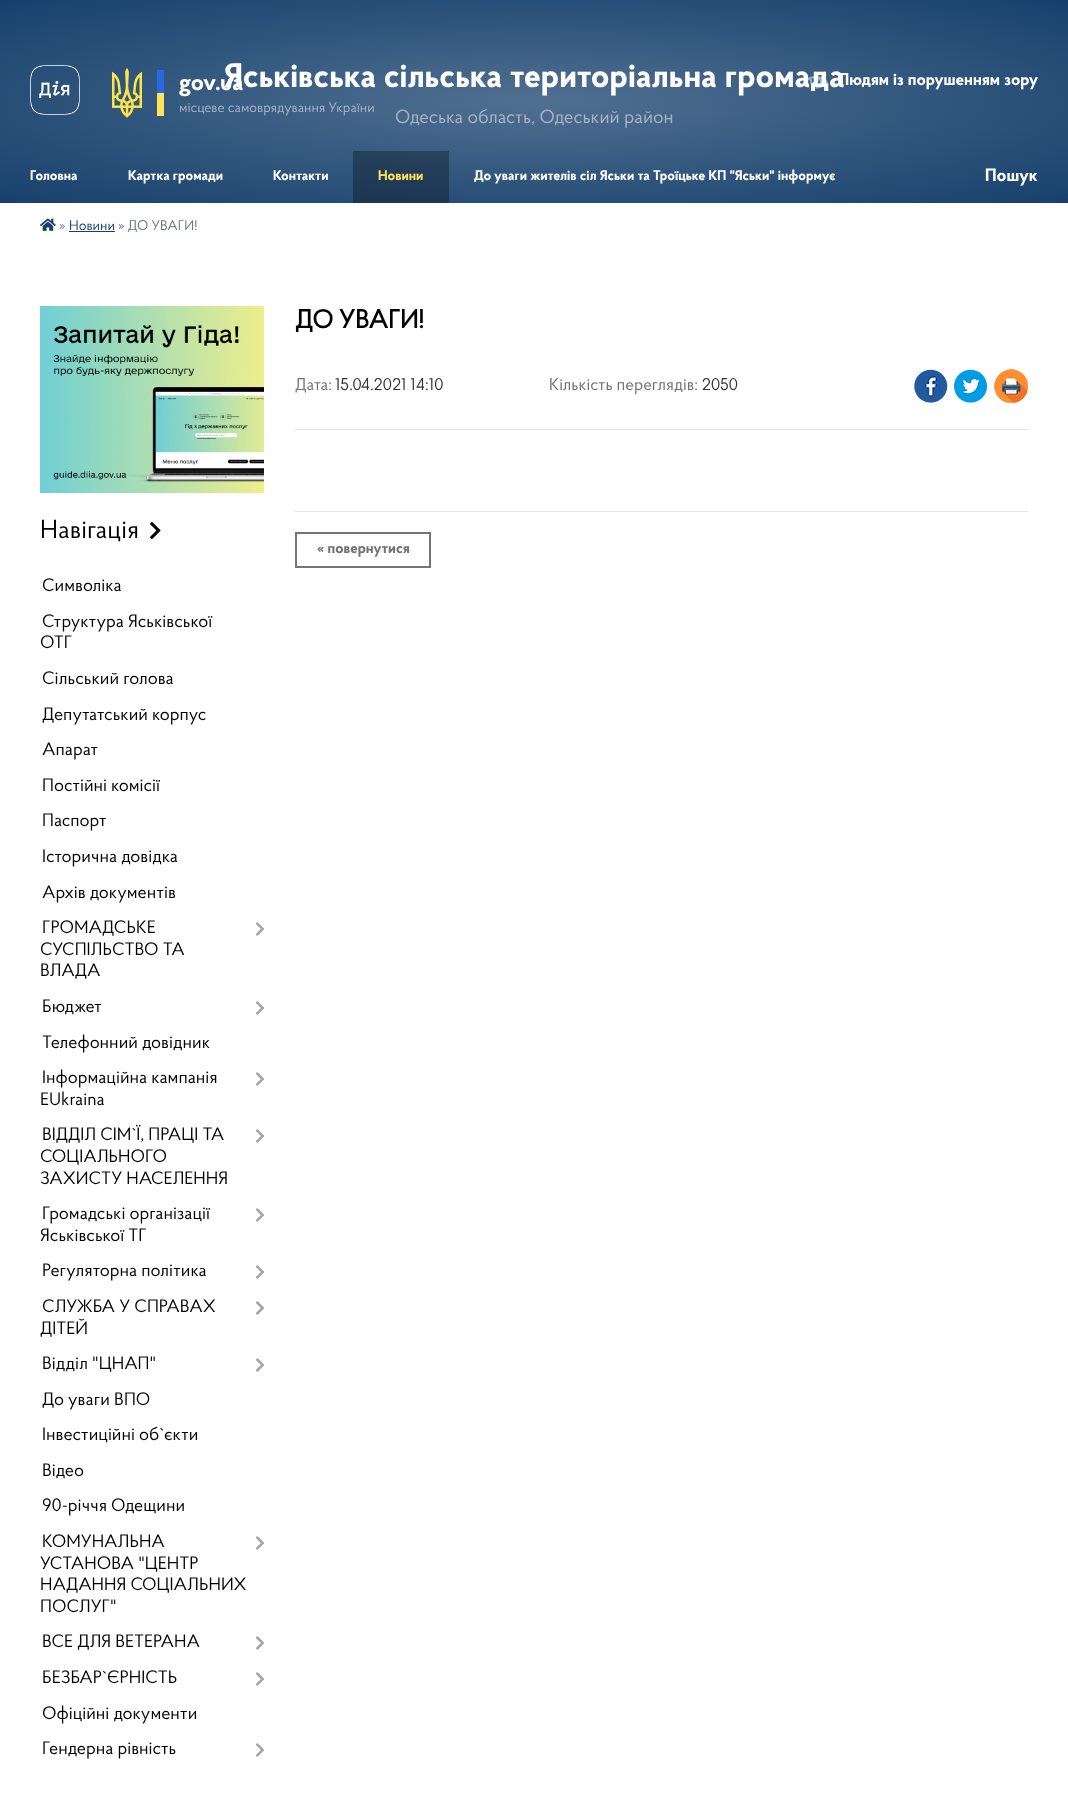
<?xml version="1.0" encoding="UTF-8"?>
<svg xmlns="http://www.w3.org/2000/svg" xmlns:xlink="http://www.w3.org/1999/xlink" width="1068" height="1808">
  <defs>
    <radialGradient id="g1" gradientUnits="userSpaceOnUse" cx="0" cy="0" r="1" gradientTransform="matrix(755 0 0 144 534 102)"><stop offset="0" stop-color="#507091" /><stop offset="1" stop-color="#16406c" /></radialGradient>
    <radialGradient id="g2" gradientUnits="userSpaceOnUse" cx="0" cy="0" r="1" gradientTransform="matrix(755 0 0 144 534 102)"><stop offset="0" stop-color="#384e66" /><stop offset="1" stop-color="#0f2d4c" /></radialGradient>
  </defs>
  <rect width="100%" height="100%" fill="#ffffff" />
  <rect width="1068" height="203" fill="url(#g1)" />
  <rect x="353" y="151" width="96" height="52" fill="url(#g2)" />
  <image x="30" y="65" width="50" height="50" xlink:href="image2.png" />
  <image x="112" y="68" width="30" height="50" xlink:href="image3.png" />
  <rect x="157" y="70" width="7" height="23" fill="#2669e3" />
  <rect x="157" y="93" width="7" height="23" fill="#ffe358" />
  <image x="40" y="218" width="16" height="13" xlink:href="image4.png" />
  <rect x="69" y="231" width="46" height="1" fill="#16406c" />
  <image x="914" y="369" width="34" height="34" xlink:href="image5.png" />
  <image x="954" y="369" width="33" height="34" xlink:href="image6.png" />
  <image x="994" y="369" width="34" height="34" xlink:href="image7.png" />
  <rect x="295" y="429" width="733" height="1" fill="#e5e5e5" />
  <rect x="295" y="511" width="733" height="1" fill="#e5e5e5" />
  <rect x="296" y="533" width="134" height="34" fill="none" stroke="#757575" stroke-width="2" />
  <image x="40" y="306" width="224" height="187" xlink:href="image8.png" />
  <image x="150" y="522" width="11" height="17" xlink:href="image9.png" />
  <image x="255" y="922" width="9" height="14" xlink:href="image10.png" />
  <image x="255" y="1001" width="9" height="14" xlink:href="image10.png" />
  <image x="255" y="1072" width="9" height="14" xlink:href="image10.png" />
  <image x="255" y="1129" width="9" height="14" xlink:href="image10.png" />
  <image x="255" y="1208" width="9" height="14" xlink:href="image10.png" />
  <image x="255" y="1265" width="9" height="14" xlink:href="image10.png" />
  <image x="255" y="1301" width="9" height="14" xlink:href="image10.png" />
  <image x="255" y="1358" width="9" height="14" xlink:href="image10.png" />
  <image x="255" y="1536" width="9" height="14" xlink:href="image10.png" />
  <image x="255" y="1636" width="9" height="14" xlink:href="image10.png" />
  <image x="255" y="1672" width="9" height="14" xlink:href="image10.png" />
  <image x="255" y="1743" width="9" height="14" xlink:href="image10.png" />
  <text x="224" y="87" style="font-family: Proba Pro; font-size: 34px; font-weight: bold; fill: #ffffff">Яськівська сільська територіальна громада</text>
  <text x="395" y="123" style="font-family: Proba Pro; font-size: 19px; fill: #aab3c6">Одеська область, Одеський район</text>
  <image x="803" y="76" width="25" height="13" xlink:href="image1.png" />
  <text x="838" y="85" style="font-family: Proba Pro; font-size: 17px; font-weight: bold; fill: #ffffff">Людям із порушенням зору</text>
  <text x="179" y="90" style="font-family: Proba Pro; font-size: 24px; font-weight: bold; fill: #ffffff">gov.ua</text>
  <text x="179" y="112" style="font-family: Proba Pro; font-size: 14px; fill: #aab3c6">місцеве самоврядування України</text>
  <text x="30" y="180" style="font-family: Proba Pro; font-size: 14px; font-weight: bold; fill: #ffffff">Головна</text>
  <text x="128" y="180" style="font-family: Proba Pro; font-size: 14px; font-weight: bold; fill: #ffffff">Картка громади</text>
  <text x="273" y="180" style="font-family: Proba Pro; font-size: 14px; font-weight: bold; fill: #ffffff">Контакти</text>
  <text x="378" y="180" style="font-family: Proba Pro; font-size: 14px; font-weight: bold; fill: #ffe358">Новини</text>
  <text x="474" y="180" style="font-family: Proba Pro; font-size: 14px; font-weight: bold; fill: #ffffff">До уваги жителів сіл Яськи та Троїцьке КП "Яськи" інформує</text>
  <text x="985" y="181" style="font-family: Proba Pro; font-size: 18px; font-weight: bold; fill: #ffffff">Пошук</text>
  <text x="59" y="230" style="font-family: Proba Pro; font-size: 14px; fill: #6d7381">»</text>
  <text x="69" y="230" style="font-family: Proba Pro; font-size: 14px; fill: #16406c">Новини</text>
  <text x="118" y="230" style="font-family: Proba Pro; font-size: 14px; fill: #6d7381">» ДО УВАГИ!</text>
  <text x="295" y="328" style="font-family: 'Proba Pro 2'; font-size: 26px; font-weight: bold; fill: #000000">ДО УВАГИ!</text>
  <text x="295" y="390" style="font-family: Proba Pro; font-size: 17px; fill: #727272">Дата:</text>
  <text x="335" y="390" style="font-family: Proba Pro; font-size: 17px; fill: #333333">15.04.2021 14:10</text>
  <text x="549" y="390" style="font-family: Proba Pro; font-size: 17px; fill: #727272">Кількість переглядів:</text>
  <text x="702" y="390" style="font-family: Proba Pro; font-size: 17px; fill: #333333">2050</text>
  <text x="317" y="553" style="font-family: Proba Pro; font-size: 15px; font-weight: bold; fill: #727272">« повернутися</text>
  <text x="40" y="538" style="font-family: Proba Pro; font-size: 26px; fill: #000000">Навігація</text>
  <text x="42" y="591" style="font-family: Proba Pro; font-size: 18px; fill: #000000">Символіка</text>
  <text x="42" y="627" style="font-family: Proba Pro; font-size: 18px; fill: #000000">Структура Яськівської</text>
  <text x="40" y="648" style="font-family: Proba Pro; font-size: 18px; fill: #000000">ОТГ</text>
  <text x="42" y="684" style="font-family: Proba Pro; font-size: 18px; fill: #000000">Сільський голова</text>
  <text x="42" y="720" style="font-family: Proba Pro; font-size: 18px; fill: #000000">Депутатський корпус</text>
  <text x="42" y="755" style="font-family: Proba Pro; font-size: 18px; fill: #000000">Апарат</text>
  <text x="42" y="791" style="font-family: Proba Pro; font-size: 18px; fill: #000000">Постійні комісії</text>
  <text x="42" y="826" style="font-family: Proba Pro; font-size: 18px; fill: #000000">Паспорт</text>
  <text x="42" y="862" style="font-family: Proba Pro; font-size: 18px; fill: #000000">Історична довідка</text>
  <text x="42" y="898" style="font-family: Proba Pro; font-size: 18px; fill: #000000">Архів документів</text>
  <text x="42" y="933" style="font-family: Proba Pro; font-size: 18px; fill: #000000">ГРОМАДСЬКЕ</text>
  <text x="40" y="955" style="font-family: Proba Pro; font-size: 18px; fill: #000000">СУСПІЛЬСТВО ТА</text>
  <text x="40" y="976" style="font-family: Proba Pro; font-size: 18px; fill: #000000">ВЛАДА</text>
  <text x="42" y="1012" style="font-family: Proba Pro; font-size: 18px; fill: #000000">Бюджет</text>
  <text x="42" y="1048" style="font-family: Proba Pro; font-size: 18px; fill: #000000">Телефонний довідник</text>
  <text x="42" y="1083" style="font-family: Proba Pro; font-size: 18px; fill: #000000">Інформаційна кампанія</text>
  <text x="40" y="1105" style="font-family: Proba Pro; font-size: 18px; fill: #000000">EUkraina</text>
  <text x="42" y="1140" style="font-family: Proba Pro; font-size: 18px; fill: #000000">ВІДДІЛ СІМ`Ї, ПРАЦІ ТА</text>
  <text x="40" y="1162" style="font-family: Proba Pro; font-size: 18px; fill: #000000">СОЦІАЛЬНОГО</text>
  <text x="40" y="1184" style="font-family: Proba Pro; font-size: 18px; fill: #000000">ЗАХИСТУ НАСЕЛЕННЯ</text>
  <text x="42" y="1219" style="font-family: Proba Pro; font-size: 18px; fill: #000000">Громадські організації</text>
  <text x="40" y="1241" style="font-family: Proba Pro; font-size: 18px; fill: #000000">Яськівської ТГ</text>
  <text x="42" y="1276" style="font-family: Proba Pro; font-size: 18px; fill: #000000">Регуляторна політика</text>
  <text x="42" y="1312" style="font-family: Proba Pro; font-size: 18px; fill: #000000">СЛУЖБА У СПРАВАХ</text>
  <text x="40" y="1334" style="font-family: Proba Pro; font-size: 18px; fill: #000000">ДІТЕЙ</text>
  <text x="42" y="1369" style="font-family: Proba Pro; font-size: 18px; fill: #000000">Відділ "ЦНАП"</text>
  <text x="42" y="1405" style="font-family: Proba Pro; font-size: 18px; fill: #000000">До уваги ВПО</text>
  <text x="42" y="1440" style="font-family: Proba Pro; font-size: 18px; fill: #000000">Інвестиційні об`єкти</text>
  <text x="42" y="1476" style="font-family: Proba Pro; font-size: 18px; fill: #000000">Відео</text>
  <text x="42" y="1511" style="font-family: Proba Pro; font-size: 18px; fill: #000000">90-річчя Одещини</text>
  <text x="42" y="1547" style="font-family: Proba Pro; font-size: 18px; fill: #000000">КОМУНАЛЬНА</text>
  <text x="40" y="1569" style="font-family: Proba Pro; font-size: 18px; fill: #000000">УСТАНОВА "ЦЕНТР</text>
  <text x="40" y="1590" style="font-family: Proba Pro; font-size: 18px; fill: #000000">НАДАННЯ СОЦІАЛЬНИХ</text>
  <text x="40" y="1612" style="font-family: Proba Pro; font-size: 18px; fill: #000000">ПОСЛУГ"</text>
  <text x="42" y="1647" style="font-family: Proba Pro; font-size: 18px; fill: #000000">ВСЕ ДЛЯ ВЕТЕРАНА</text>
  <text x="42" y="1683" style="font-family: Proba Pro; font-size: 18px; fill: #000000">БЕЗБАР`ЄРНІСТЬ</text>
  <text x="42" y="1719" style="font-family: Proba Pro; font-size: 18px; fill: #000000">Офіційні документи</text>
  <text x="42" y="1754" style="font-family: Proba Pro; font-size: 18px; fill: #000000">Гендерна рівність</text>
</svg>
